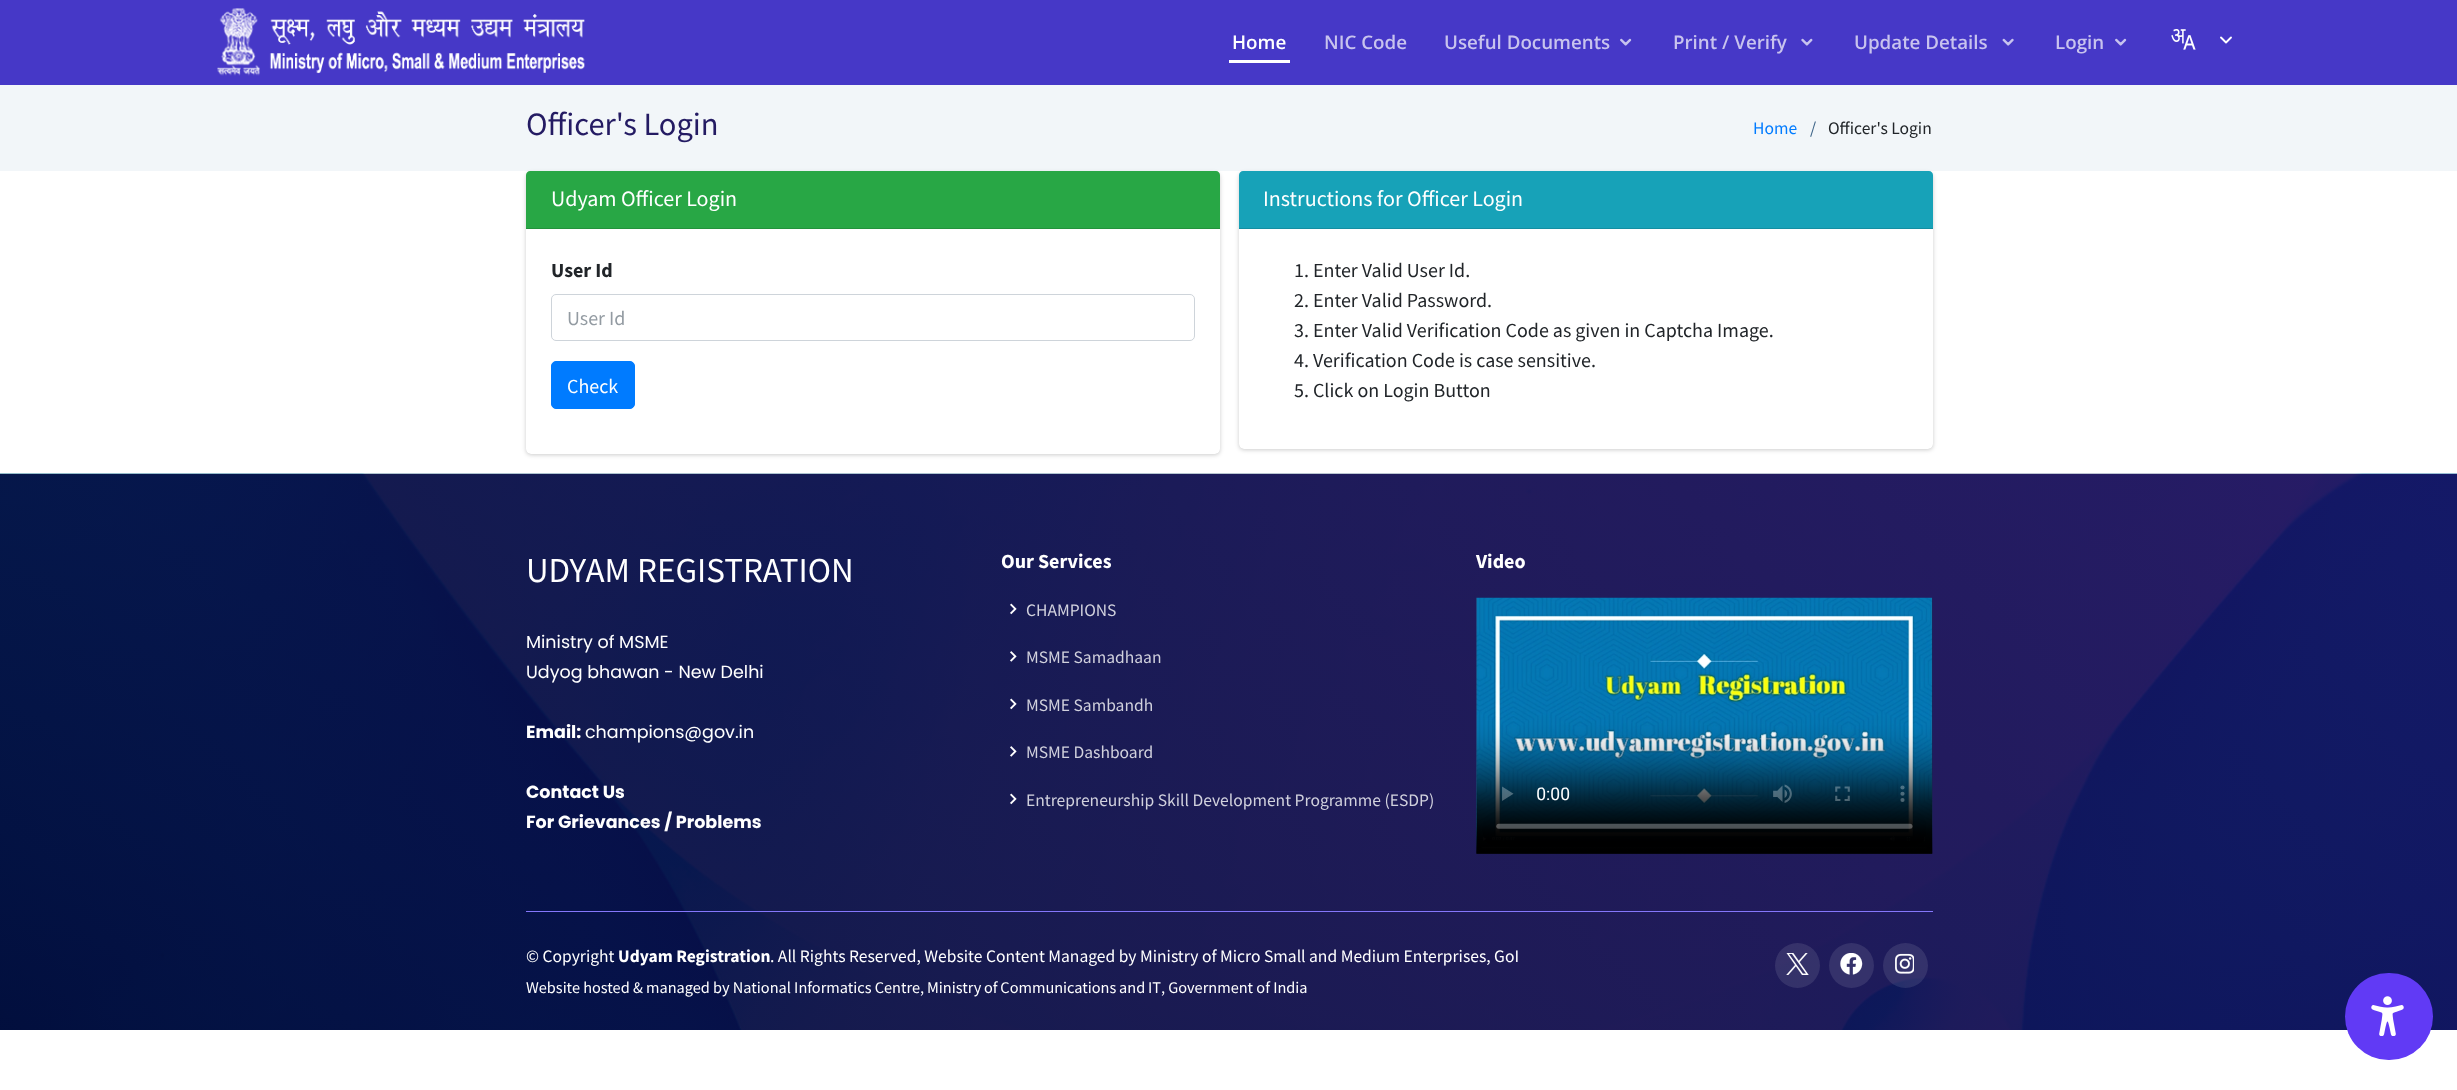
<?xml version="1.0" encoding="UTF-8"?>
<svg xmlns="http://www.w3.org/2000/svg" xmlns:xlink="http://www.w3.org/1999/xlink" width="2457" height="1090">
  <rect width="100%" height="100%" fill="#ffffff" />
  <rect width="2457" height="85" fill="#4638c7" />
  <image x="217" y="8" width="368" height="68" xlink:href="image1.png" />
  <rect x="1229" y="60" width="61" height="3" fill="#ffffff" />
  <image x="1620" y="38" width="12" height="8" xlink:href="image2.png" />
  <image x="1801" y="38" width="12" height="8" xlink:href="image3.png" />
  <image x="2002" y="38" width="12" height="8" xlink:href="image4.png" />
  <image x="2115" y="38" width="12" height="8" xlink:href="image2.png" />
  <image x="2171" y="29" width="25" height="21" xlink:href="image5.png" />
  <path d="M 2221 37.5 l 5 5 l 5 -5" fill="none" stroke="#ffffff" stroke-width="1.9" stroke-linecap="round" stroke-linejoin="round" />
  <rect y="85" width="2457" height="86" fill="#f2f6f9" />
  <rect x="526" y="173" width="694" height="282" rx="5" fill="#000000" fill-opacity="0.2" filter="blur(2px)" />
  <rect x="526" y="171" width="694" height="283" rx="5" fill="#000000" fill-opacity="0.12" filter="blur(0.5px)" />
  <rect x="526" y="171" width="694" height="283" rx="5" fill="#ffffff" />
  <path d="M 530 171 h 686 c 2 0 4 2 4 4 v 54 h -694 v -54 c 0 -2 2 -4 4 -4 z" fill="#28a745" />
  <rect x="526" y="228" width="694" height="1" fill="#23923c" />
  <rect x="551.5" y="294.5" width="643" height="46" rx="4.5" fill="none" stroke="#ced4da" />
  <rect x="551.5" y="361.5" width="83" height="47" rx="4.5" fill="#007bff" stroke="#007bff" />
  <rect x="1239" y="173" width="694" height="277" rx="5" fill="#000000" fill-opacity="0.2" filter="blur(2px)" />
  <rect x="1239" y="171" width="694" height="278" rx="5" fill="#000000" fill-opacity="0.12" filter="blur(0.5px)" />
  <rect x="1239" y="171" width="694" height="278" rx="5" fill="#ffffff" />
  <path d="M 1243 171 h 686 c 2 0 4 2 4 4 v 54 h -694 v -54 c 0 -2 2 -4 4 -4 z" fill="#17a2b8" />
  <rect x="1239" y="228" width="694" height="1" fill="#148ea1" />
  <image x="0" y="473" width="2457" height="557" xlink:href="image6.png" />
  <image x="1010" y="603" width="7" height="12" xlink:href="image7.png" />
  <image x="1010" y="651" width="7" height="11" xlink:href="image8.png" />
  <image x="1010" y="698" width="7" height="12" xlink:href="image9.png" />
  <image x="1010" y="746" width="7" height="11" xlink:href="image10.png" />
  <image x="1010" y="793" width="7" height="12" xlink:href="image11.png" />
  <image x="1476" y="597" width="457" height="257" xlink:href="image12.png" />
  <rect x="526" y="911" width="1407" height="1" fill="#8577fb" />
  <circle cx="1797.5" cy="965.5" r="22.5" fill="#ffffff" fill-opacity="0.1" />
  <image x="1786" y="953" width="23" height="22" xlink:href="image13.png" />
  <circle cx="1851.5" cy="965.5" r="22.5" fill="#35326b" />
  <image x="1840" y="953" width="23" height="22" xlink:href="image14.png" />
  <circle cx="1905.5" cy="965.5" r="22.5" fill="#ffffff" fill-opacity="0.1" />
  <image x="1895" y="953" width="19" height="21" xlink:href="image15.png" />
  <rect x="2345" y="973" width="88" height="87" rx="43.5" fill="#613af5" />
  <image x="2371" y="996" width="33" height="40" xlink:href="image16.png" />
  <text x="1232" y="49" style="font-family: Open Sans; font-size: 18.75px; font-weight: 600; fill: #ffffff">Home</text>
  <text x="1324" y="49" style="font-family: Open Sans; font-size: 18.75px; font-weight: 600; fill: #c8c3ee">NIC Code</text>
  <text x="1444" y="49" style="font-family: Open Sans; font-size: 18.75px; font-weight: 600; fill: #c8c3ee">Useful Documents</text>
  <text x="1673" y="49" style="font-family: Open Sans; font-size: 18.75px; font-weight: 600; fill: #c8c3ee">Print / Verify</text>
  <text x="1854" y="49" style="font-family: Open Sans; font-size: 18.75px; font-weight: 600; fill: #c8c3ee">Update Details</text>
  <text x="2055" y="49" style="font-family: Open Sans; font-size: 18.75px; font-weight: 600; fill: #c8c3ee">Login</text>
  <text x="526" y="135" style="font-family: Source Sans Pro; font-size: 32.5px; fill: #241b63">Officer's Login</text>
  <text x="1753" y="134" style="font-family: Source Sans Pro; font-size: 17.5px; fill: #007bff">Home</text>
  <text x="1810" y="134" style="font-family: Source Sans Pro; font-size: 17.5px; fill: #3c6387">/</text>
  <text x="1828" y="134" style="font-family: Source Sans Pro; font-size: 17.5px; fill: #212529">Officer's Login</text>
  <text x="551" y="206" style="font-family: Source Sans Pro; font-size: 22px; fill: #ffffff">Udyam Officer Login</text>
  <text x="551" y="277" style="font-family: Source Sans Pro; font-size: 20px; font-weight: bold; fill: #212529">User Id</text>
  <text x="567" y="325" style="font-family: Source Sans Pro; font-size: 20px; fill: #939ba2">User Id</text>
  <text x="567" y="393" style="font-family: Source Sans Pro; font-size: 20px; fill: #ffffff">Check</text>
  <text x="1263" y="206" style="font-family: Source Sans Pro; font-size: 22px; fill: #ffffff">Instructions for Officer Login</text>
  <text x="1294" y="277" style="font-family: Source Sans Pro; font-size: 20px; fill: #212529">1. Enter Valid User Id.</text>
  <text x="1294" y="307" style="font-family: Source Sans Pro; font-size: 20px; fill: #212529">2. Enter Valid Password.</text>
  <text x="1294" y="337" style="font-family: Source Sans Pro; font-size: 20px; fill: #212529">3. Enter Valid Verification Code as given in Captcha Image.</text>
  <text x="1294" y="367" style="font-family: Source Sans Pro; font-size: 20px; fill: #212529">4. Verification Code is case sensitive.</text>
  <text x="1294" y="397" style="font-family: Source Sans Pro; font-size: 20px; fill: #212529">5. Click on Login Button</text>
  <text x="526" y="582" style="font-family: Source Sans Pro; font-size: 35px; fill: #ffffff">UDYAM REGISTRATION</text>
  <text x="526" y="648" style="font-family: Poppins; font-size: 17.5px; fill: #ffffff">Ministry of MSME</text>
  <text x="526" y="678" style="font-family: Poppins; font-size: 17.5px; fill: #ffffff">Udyog bhawan - New Delhi</text>
  <text x="526" y="738" style="font-family: Poppins; font-size: 17.5px; font-weight: bold; fill: #ffffff">Email:</text>
  <text x="585" y="738" style="font-family: Poppins; font-size: 17.5px; fill: #ffffff">champions@gov.in</text>
  <text x="526" y="798" style="font-family: Poppins; font-size: 17.5px; font-weight: bold; fill: #ffffff">Contact Us</text>
  <text x="526" y="828" style="font-family: Poppins; font-size: 17.5px; font-weight: bold; fill: #ffffff">For Grievances / Problems</text>
  <text x="1001" y="568" style="font-family: Source Sans Pro; font-size: 20px; font-weight: bold; fill: #ffffff">Our Services</text>
  <text x="1026" y="616" style="font-family: Source Sans Pro; font-size: 17.5px; fill: #d1d1dd">CHAMPIONS</text>
  <text x="1026" y="663" style="font-family: Source Sans Pro; font-size: 17.5px; fill: #d1d1dd">MSME Samadhaan</text>
  <text x="1026" y="711" style="font-family: Source Sans Pro; font-size: 17.5px; fill: #d1d1dd">MSME Sambandh</text>
  <text x="1026" y="758" style="font-family: Source Sans Pro; font-size: 17.5px; fill: #d1d1dd">MSME Dashboard</text>
  <text x="1026" y="806" style="font-family: Source Sans Pro; font-size: 17.5px; fill: #d1d1dd">Entrepreneurship Skill Development Programme (ESDP)</text>
  <text x="1476" y="568" style="font-family: Source Sans Pro; font-size: 20px; font-weight: bold; fill: #ffffff">Video</text>
  <text x="526" y="962" style="font-family: Source Sans Pro; font-size: 17.5px; fill: #ffffff">© Copyright</text>
  <text x="618" y="962" style="font-family: Source Sans Pro; font-size: 17.5px; font-weight: bold; fill: #ffffff">Udyam Registration</text>
  <text x="770" y="962" style="font-family: Source Sans Pro; font-size: 17.5px; fill: #ffffff">. All Rights Reserved, Website Content Managed by Ministry of Micro Small and Medium Enterprises, GoI</text>
  <text x="526" y="993" style="font-family: Source Sans Pro; font-size: 16.25px; fill: #ffffff">Website hosted &amp; managed by National Informatics Centre,</text>
  <text x="927" y="993" word-spacing="-0.5" style="font-family: Source Sans Pro; font-size: 16.25px; fill: #ffffff">Ministry of Communications and IT</text>
  <text x="1161" y="993" style="font-family: Source Sans Pro; font-size: 16.25px; fill: #ffffff">, Government of India</text>
</svg>
